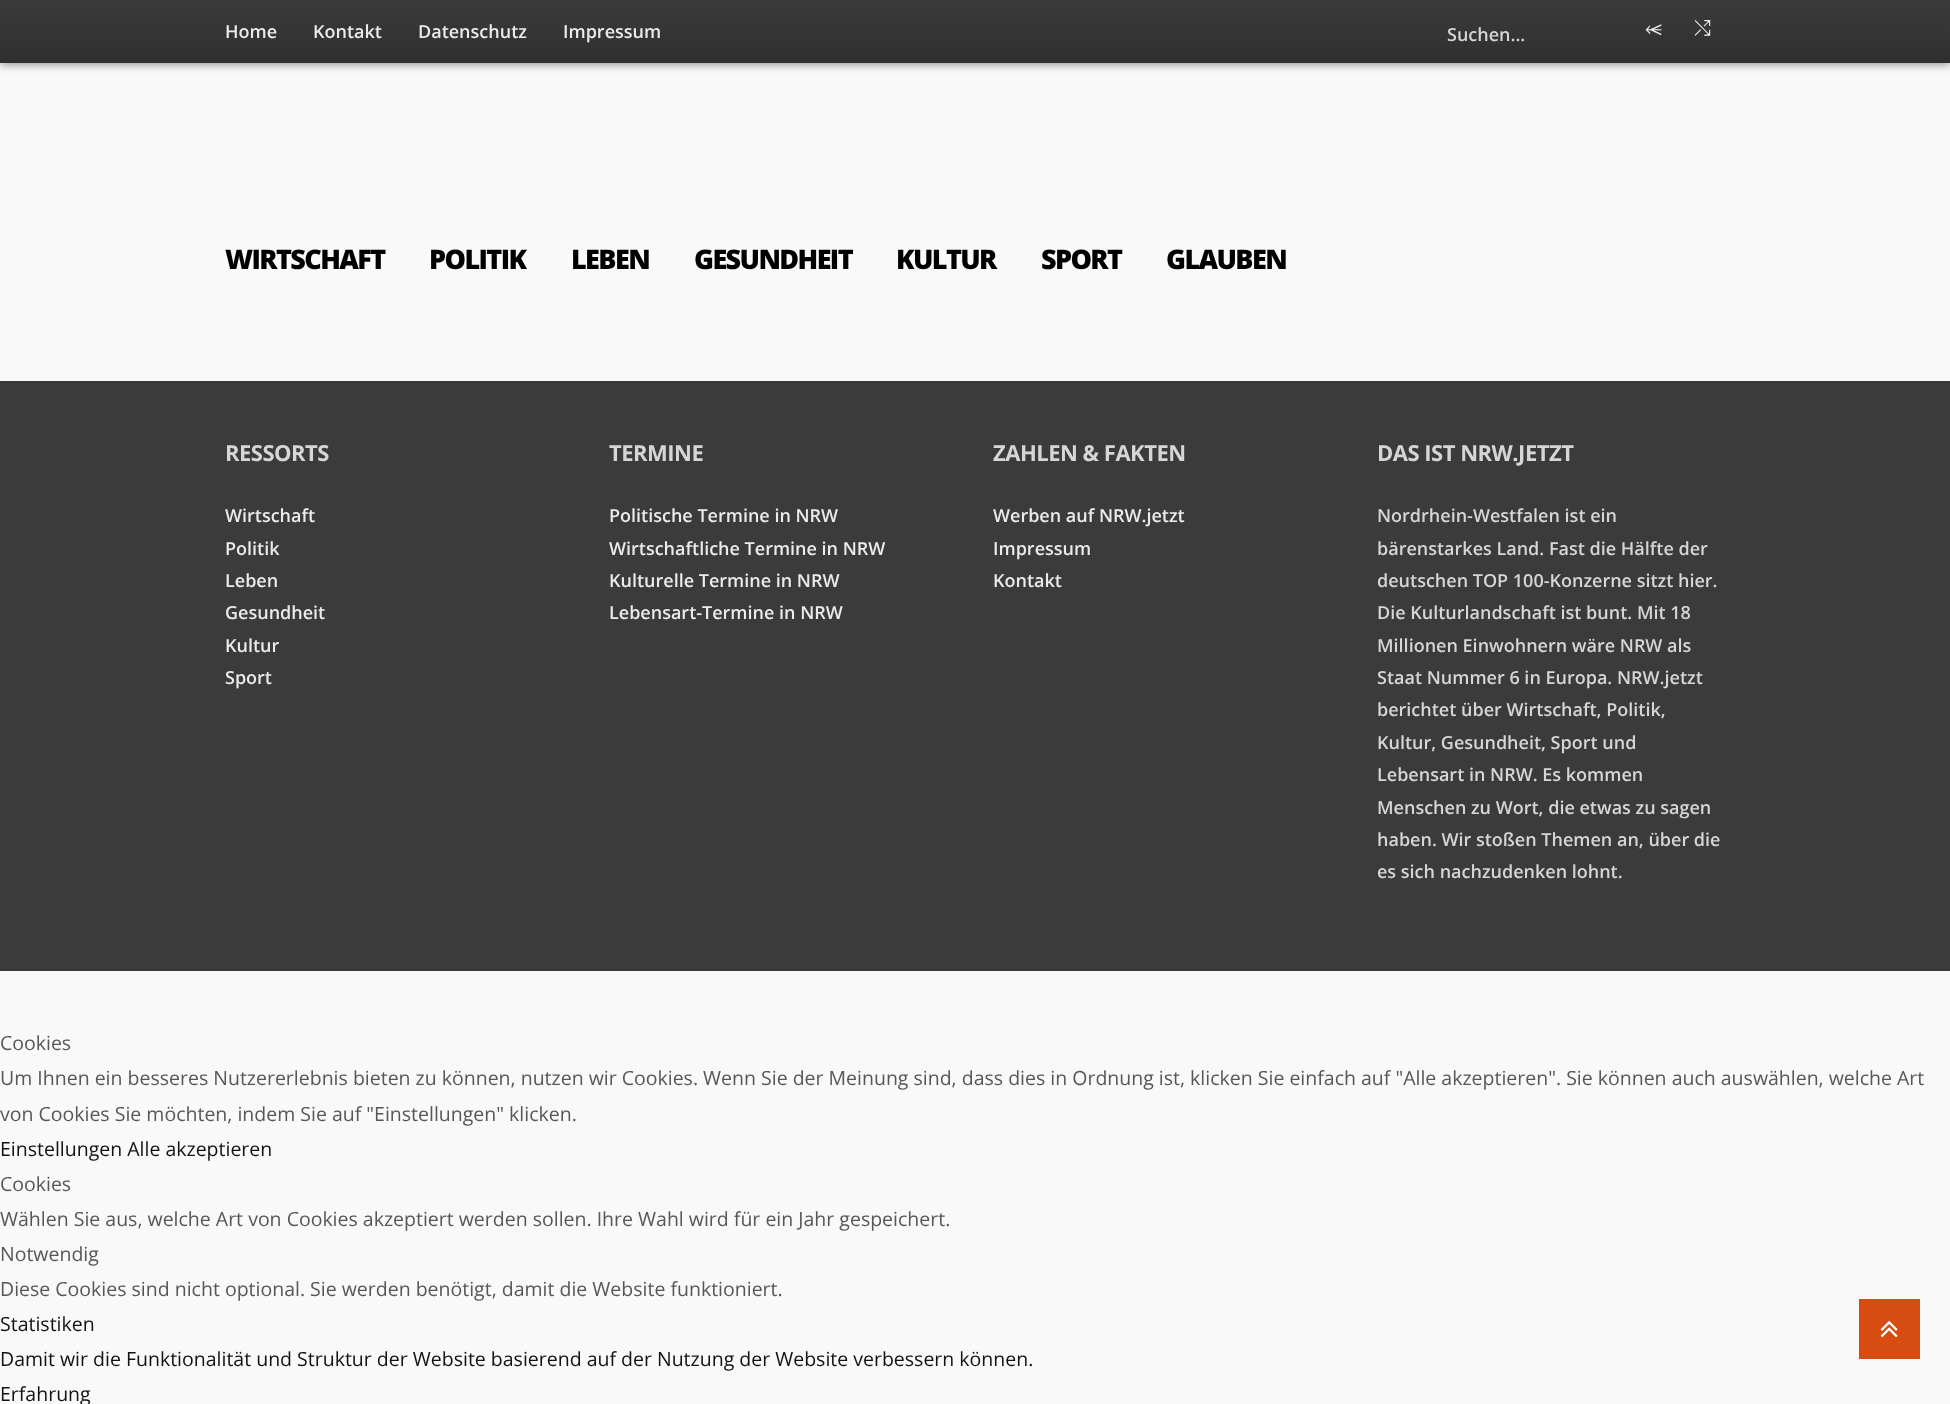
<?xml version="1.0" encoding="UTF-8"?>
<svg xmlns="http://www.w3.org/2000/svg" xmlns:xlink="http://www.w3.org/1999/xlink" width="1950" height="1404">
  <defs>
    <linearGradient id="g1" gradientUnits="userSpaceOnUse" x1="975" y1="0" x2="975" y2="63"><stop offset="0" stop-color="#3b3b3b" /><stop offset="1" stop-color="#2f2f2f" /></linearGradient>
  </defs>
  <rect width="100%" height="100%" fill="#f9f9f9" />
  <rect y="2" width="1950" height="63" fill="#000000" fill-opacity="0.4" filter="blur(4px)" />
  <rect width="1950" height="63" fill="url(#g1)" />
  <rect y="381" width="1950" height="590" fill="#3b3b3b" />
  <rect x="1859" y="1299" width="61" height="60" fill="#d74c10" />
  <image x="1880" y="1321" width="18" height="17" xlink:href="image1.png" />
  <text x="225" y="38" style="font-family: Open Sans; font-size: 18px; font-weight: 600; fill: #ebebeb">Home</text>
  <text x="313" y="38" style="font-family: Open Sans; font-size: 18px; font-weight: 600; fill: #ebebeb">Kontakt</text>
  <text x="418" y="38" style="font-family: Open Sans; font-size: 18px; font-weight: 600; fill: #ebebeb">Datenschutz</text>
  <text x="563" y="38" style="font-family: Open Sans; font-size: 18px; font-weight: 600; fill: #ebebeb">Impressum</text>
  <text x="1447" y="41" style="font-family: Open Sans; font-size: 18px; font-weight: 600; fill: #d6d6d6">Suchen...</text>
  <text x="1645" y="35" style="font-family: FreeSerif; font-size: 21px; fill: #ebebeb">⥷</text>
  <text x="1694" y="35" style="font-family: FreeSerif; font-size: 21px; fill: #ebebeb">⤭</text>
  <text x="225" y="269" style="font-family: Open Sans; font-size: 27px; font-weight: 800; letter-spacing: -1.6px; fill: #000000">WIRTSCHAFT</text>
  <text x="429" y="269" style="font-family: Open Sans; font-size: 27px; font-weight: 800; letter-spacing: -1.6px; fill: #000000">POLITIK</text>
  <text x="571" y="269" style="font-family: Open Sans; font-size: 27px; font-weight: 800; letter-spacing: -1.6px; fill: #000000">LEBEN</text>
  <text x="694" y="269" style="font-family: Open Sans; font-size: 27px; font-weight: 800; letter-spacing: -1.6px; fill: #000000">GESUNDHEIT</text>
  <text x="896" y="269" style="font-family: Open Sans; font-size: 27px; font-weight: 800; letter-spacing: -1.6px; fill: #000000">KULTUR</text>
  <text x="1041" y="269" style="font-family: Open Sans; font-size: 27px; font-weight: 800; letter-spacing: -1.6px; fill: #000000">SPORT</text>
  <text x="1166" y="269" style="font-family: Open Sans; font-size: 27px; font-weight: 800; letter-spacing: -1.6px; fill: #000000">GLAUBEN</text>
  <text x="225" y="461" style="font-family: Open Sans; font-size: 22px; font-weight: bold; letter-spacing: -0.5px; fill: #d6d6d6">RESSORTS</text>
  <text x="225" y="522" style="font-family: Open Sans; font-size: 18px; font-weight: 600; fill: #ebebeb">Wirtschaft</text>
  <text x="225" y="555" style="font-family: Open Sans; font-size: 18px; font-weight: 600; fill: #ebebeb">Politik</text>
  <text x="225" y="587" style="font-family: Open Sans; font-size: 18px; font-weight: 600; fill: #ebebeb">Leben</text>
  <text x="225" y="619" style="font-family: Open Sans; font-size: 18px; font-weight: 600; fill: #ebebeb">Gesundheit</text>
  <text x="225" y="652" style="font-family: Open Sans; font-size: 18px; font-weight: 600; fill: #ebebeb">Kultur</text>
  <text x="225" y="684" style="font-family: Open Sans; font-size: 18px; font-weight: 600; fill: #ebebeb">Sport</text>
  <text x="609" y="461" style="font-family: Open Sans; font-size: 22px; font-weight: bold; letter-spacing: -0.5px; fill: #d6d6d6">TERMINE</text>
  <text x="609" y="522" style="font-family: Open Sans; font-size: 18px; font-weight: 600; fill: #ebebeb">Politische Termine in NRW</text>
  <text x="609" y="555" style="font-family: Open Sans; font-size: 18px; font-weight: 600; fill: #ebebeb">Wirtschaftliche Termine in NRW</text>
  <text x="609" y="587" style="font-family: Open Sans; font-size: 18px; font-weight: 600; fill: #ebebeb">Kulturelle Termine in NRW</text>
  <text x="609" y="619" style="font-family: Open Sans; font-size: 18px; font-weight: 600; fill: #ebebeb">Lebensart-Termine in NRW</text>
  <text x="993" y="461" style="font-family: Open Sans; font-size: 22px; font-weight: bold; letter-spacing: -0.5px; fill: #d6d6d6">ZAHLEN &amp; FAKTEN</text>
  <text x="993" y="522" style="font-family: Open Sans; font-size: 18px; font-weight: 600; fill: #ebebeb">Werben auf NRW.jetzt</text>
  <text x="993" y="555" style="font-family: Open Sans; font-size: 18px; font-weight: 600; fill: #ebebeb">Impressum</text>
  <text x="993" y="587" style="font-family: Open Sans; font-size: 18px; font-weight: 600; fill: #ebebeb">Kontakt</text>
  <text x="1377" y="461" style="font-family: Open Sans; font-size: 22px; font-weight: bold; letter-spacing: -0.5px; fill: #d6d6d6">DAS IST NRW.JETZT</text>
  <text x="1377" y="522" style="font-family: Open Sans; font-size: 18px; font-weight: 600; fill: #d6d6d6">Nordrhein-Westfalen ist ein</text>
  <text x="1377" y="555" style="font-family: Open Sans; font-size: 18px; font-weight: 600; fill: #d6d6d6">bärenstarkes Land. Fast die Hälfte der</text>
  <text x="1377" y="587" style="font-family: Open Sans; font-size: 18px; font-weight: 600; fill: #d6d6d6">deutschen TOP 100-Konzerne sitzt hier.</text>
  <text x="1377" y="619" style="font-family: Open Sans; font-size: 18px; font-weight: 600; fill: #d6d6d6">Die Kulturlandschaft ist bunt. Mit 18</text>
  <text x="1377" y="652" style="font-family: Open Sans; font-size: 18px; font-weight: 600; fill: #d6d6d6">Millionen Einwohnern wäre NRW als</text>
  <text x="1377" y="684" style="font-family: Open Sans; font-size: 18px; font-weight: 600; fill: #d6d6d6">Staat Nummer 6 in Europa. NRW.jetzt</text>
  <text x="1377" y="716" style="font-family: Open Sans; font-size: 18px; font-weight: 600; fill: #d6d6d6">berichtet über Wirtschaft, Politik,</text>
  <text x="1377" y="749" style="font-family: Open Sans; font-size: 18px; font-weight: 600; fill: #d6d6d6">Kultur, Gesundheit, Sport und</text>
  <text x="1377" y="781" style="font-family: Open Sans; font-size: 18px; font-weight: 600; fill: #d6d6d6">Lebensart in NRW. Es kommen</text>
  <text x="1377" y="814" style="font-family: Open Sans; font-size: 18px; font-weight: 600; fill: #d6d6d6">Menschen zu Wort, die etwas zu sagen</text>
  <text x="1377" y="846" style="font-family: Open Sans; font-size: 18px; font-weight: 600; fill: #d6d6d6">haben. Wir stoßen Themen an, über die</text>
  <text x="1377" y="878" style="font-family: Open Sans; font-size: 18px; font-weight: 600; fill: #d6d6d6">es sich nachzudenken lohnt.</text>
  <text x="0" y="1050" style="font-family: Open Sans; font-size: 19.5px; fill: #575757">Cookies</text>
  <text x="0" y="1085" style="font-family: Open Sans; font-size: 19.5px; fill: #575757">Um Ihnen ein besseres Nutzererlebnis bieten zu können, nutzen wir Cookies. Wenn Sie der Meinung sind, dass dies in Ordnung ist, klicken Sie einfach auf "Alle akzeptieren". Sie können auch auswählen, welche Art</text>
  <text x="0" y="1121" style="font-family: Open Sans; font-size: 19.5px; fill: #575757">von Cookies Sie möchten, indem Sie auf "Einstellungen" klicken.</text>
  <text x="0" y="1156" style="font-family: Open Sans; font-size: 19.5px; fill: #121212">Einstellungen Alle akzeptieren</text>
  <text x="0" y="1191" style="font-family: Open Sans; font-size: 19.5px; fill: #575757">Cookies</text>
  <text x="0" y="1226" style="font-family: Open Sans; font-size: 19.5px; fill: #575757">Wählen Sie aus, welche Art von Cookies akzeptiert werden sollen. Ihre Wahl wird für ein Jahr gespeichert.</text>
  <text x="0" y="1261" style="font-family: Open Sans; font-size: 19.5px; fill: #575757">Notwendig</text>
  <text x="0" y="1296" style="font-family: Open Sans; font-size: 19.5px; fill: #575757">Diese Cookies sind nicht optional. Sie werden benötigt, damit die Website funktioniert.</text>
  <text x="0" y="1331" style="font-family: Open Sans; font-size: 19.5px; fill: #121212">Statistiken</text>
  <text x="0" y="1366" style="font-family: Open Sans; font-size: 19.5px; fill: #121212">Damit wir die Funktionalität und Struktur der Website basierend auf der Nutzung der Website verbessern können.</text>
  <text x="0" y="1401" style="font-family: Open Sans; font-size: 19.5px; fill: #121212">Erfahrung</text>
</svg>
